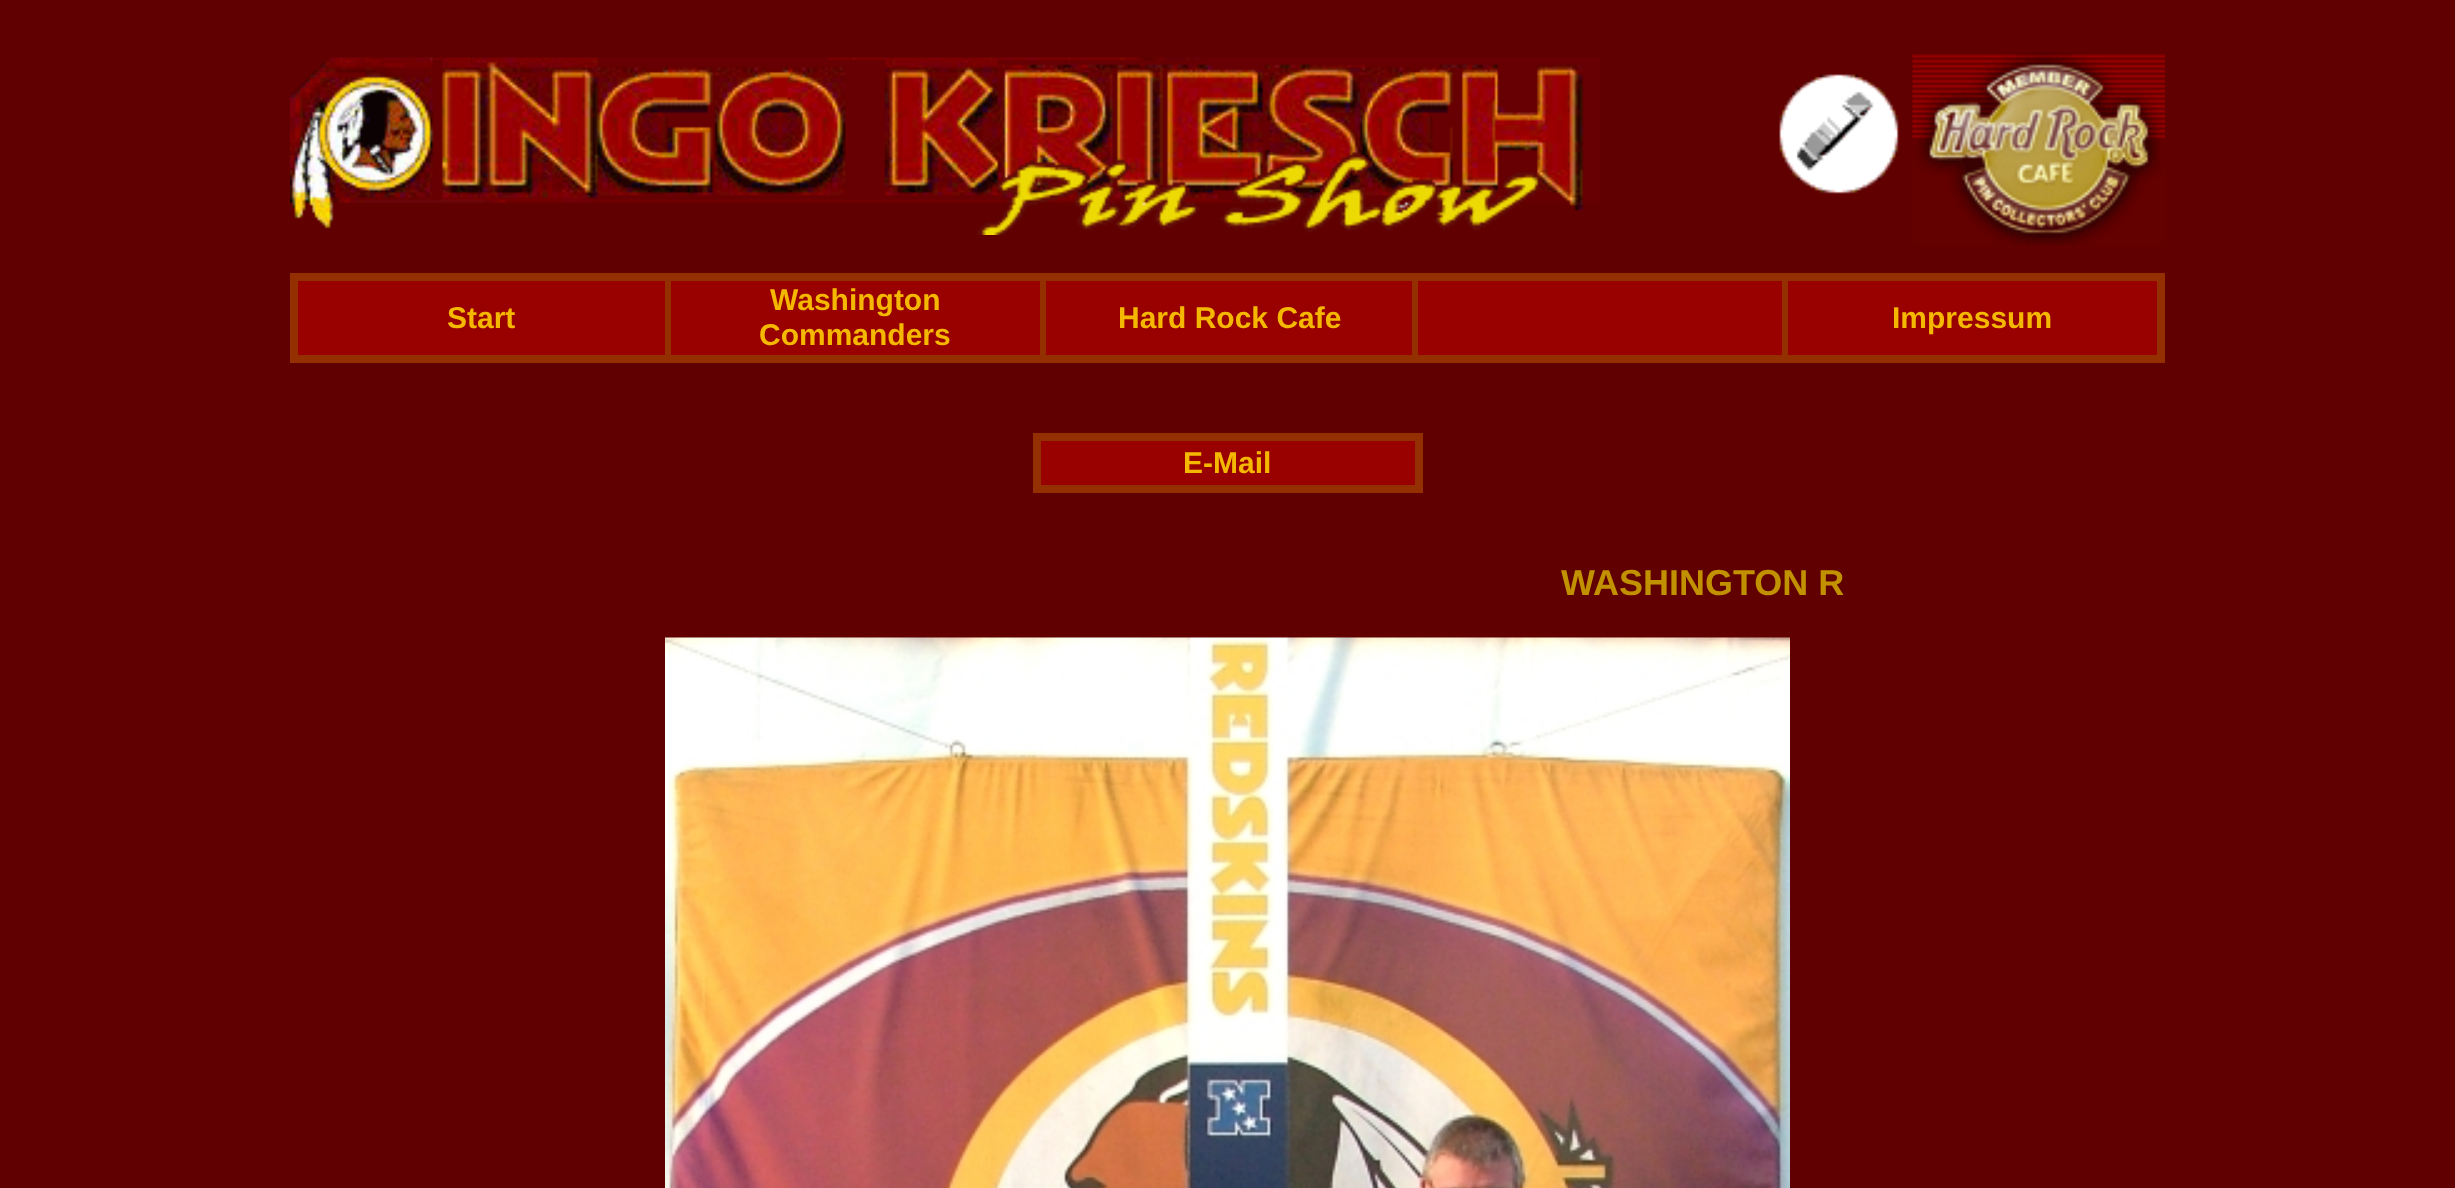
<?xml version="1.0" encoding="UTF-8"?>
<svg xmlns="http://www.w3.org/2000/svg" xmlns:xlink="http://www.w3.org/1999/xlink" width="2455" height="1188">
  <rect width="100%" height="100%" fill="#600000" />
  <image x="290" y="57" width="1310" height="178" xlink:href="image1.png" />
  <image x="1779" y="74" width="120" height="120" xlink:href="image2.png" />
  <image x="1912" y="52" width="253" height="193" xlink:href="image3.png" />
  <rect x="298" y="281" width="1859" height="74" fill="#990000" />
  <rect x="292.5" y="275.5" width="1870" height="85" fill="none" stroke="#942f00" stroke-width="5" />
  <rect x="296.5" y="279.5" width="370" height="77" fill="none" stroke="#942f00" stroke-width="3" />
  <rect x="669.5" y="279.5" width="372" height="77" fill="none" stroke="#942f00" stroke-width="3" />
  <rect x="1044.5" y="279.5" width="369" height="77" fill="none" stroke="#942f00" stroke-width="3" />
  <rect x="1416.5" y="279.5" width="367" height="77" fill="none" stroke="#942f00" stroke-width="3" />
  <rect x="1786.5" y="279.5" width="372" height="77" fill="none" stroke="#942f00" stroke-width="3" />
  <rect x="1041" y="441" width="374" height="44" fill="#990000" />
  <rect x="1035.5" y="435.5" width="385" height="55" fill="none" stroke="#942f00" stroke-width="5" />
  <rect x="1039.5" y="439.5" width="377" height="47" fill="none" stroke="#942f00" stroke-width="3" />
  <image x="665" y="637" width="1125" height="551" xlink:href="image4.png" />
  <text x="447" y="328" style="font-family: Liberation Sans; font-size: 30px; font-weight: bold; fill: #f5b800">Start</text>
  <text x="770" y="310" style="font-family: Liberation Sans; font-size: 30px; font-weight: bold; fill: #f5b800">Washington</text>
  <text x="759" y="345" style="font-family: Liberation Sans; font-size: 30px; font-weight: bold; fill: #f5b800">Commanders</text>
  <text x="1118" y="328" style="font-family: Liberation Sans; font-size: 30px; font-weight: bold; fill: #f5b800">Hard Rock Cafe</text>
  <text x="1892" y="328" style="font-family: Liberation Sans; font-size: 30px; font-weight: bold; fill: #f5b800">Impressum</text>
  <text x="1183" y="473" style="font-family: Liberation Sans; font-size: 30px; font-weight: bold; fill: #f5b800">E-Mail</text>
  <text x="1561" y="595" style="font-family: Liberation Sans; font-size: 36px; font-weight: bold; fill: #c29100">WASHINGTON R</text>
</svg>
